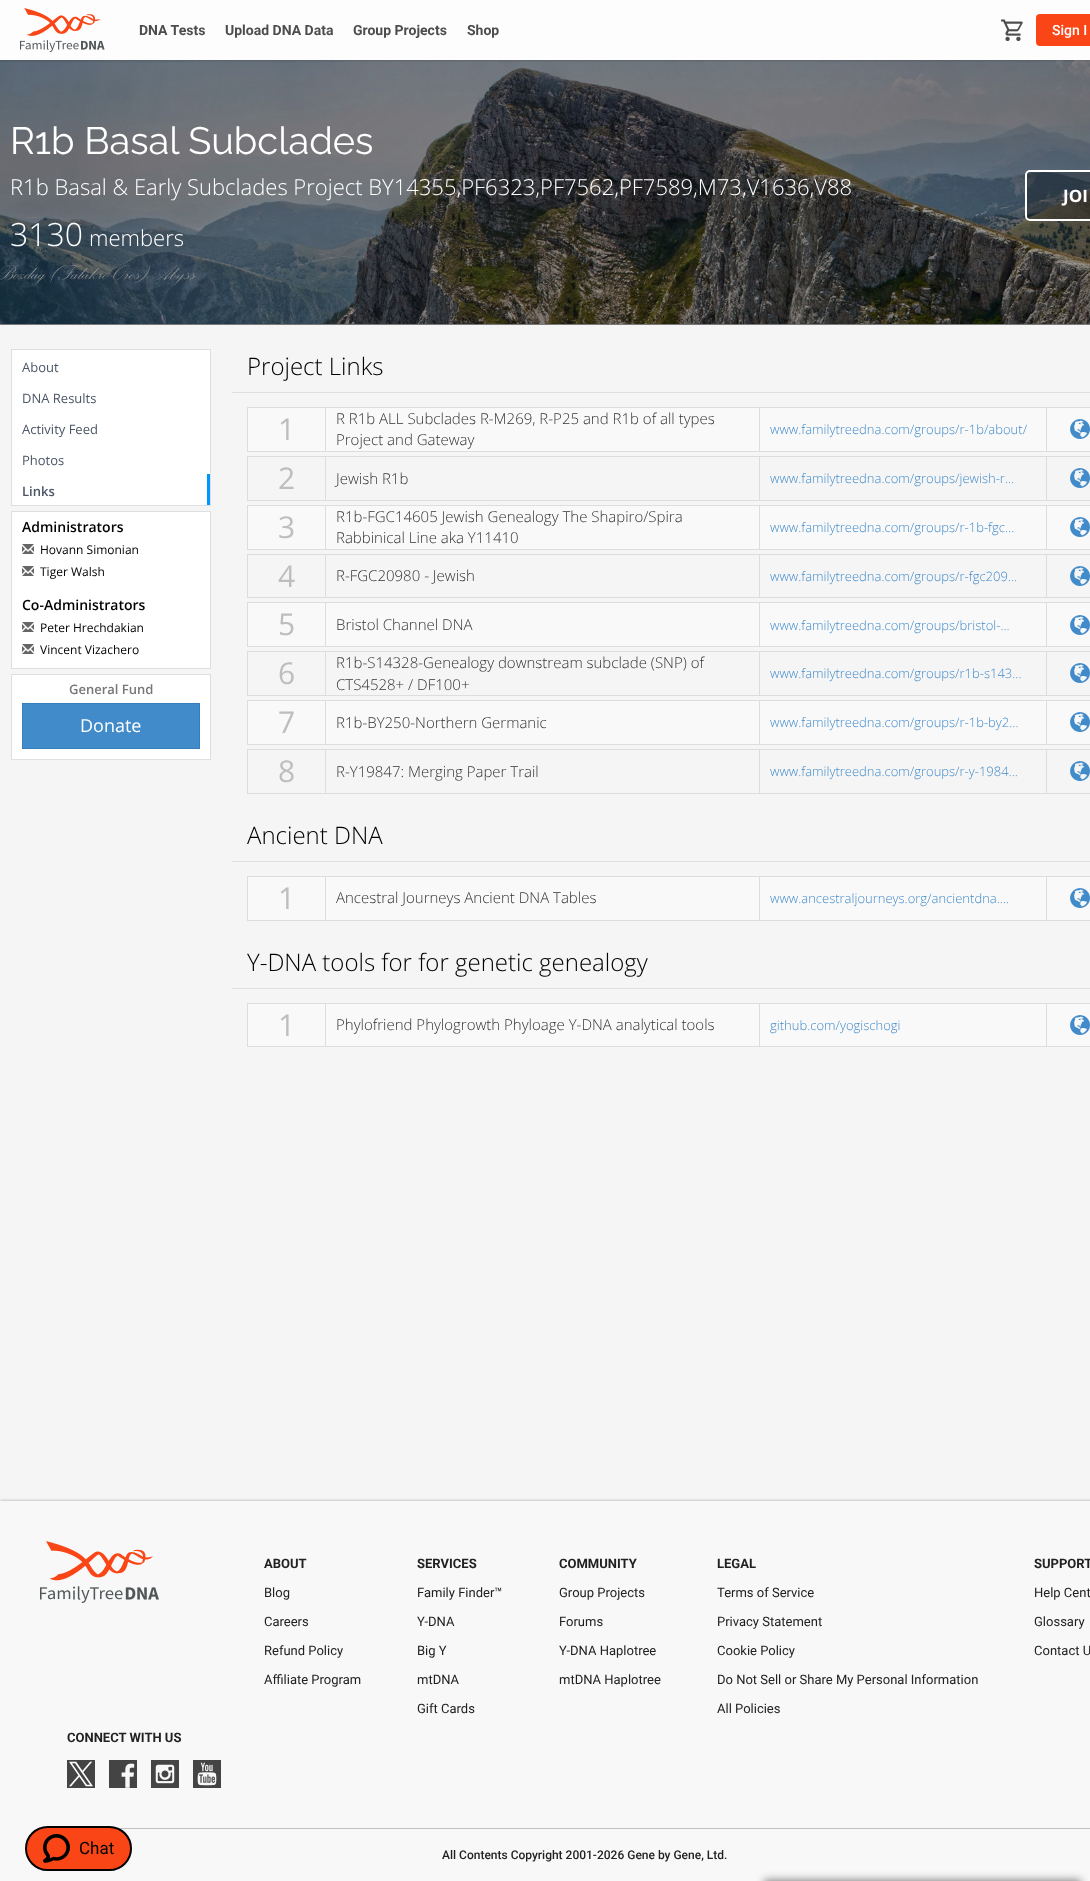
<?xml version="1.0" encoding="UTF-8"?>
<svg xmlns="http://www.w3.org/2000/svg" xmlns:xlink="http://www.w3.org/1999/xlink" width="1090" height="1881">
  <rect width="100%" height="100%" fill="#f5f5f5" />
  <image x="0" y="60" width="1090" height="264" xlink:href="image3.png" />
  <rect y="1" width="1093" height="60" fill="#212121" fill-opacity="0.21" filter="blur(1px)" />
  <rect width="1090" height="60" fill="#fdfdfd" />
  <image x="20" y="8" width="85" height="44" xlink:href="image1.png" />
  <image x="1001" y="19" width="22" height="22" xlink:href="image2.png" />
  <rect x="1036" y="14" width="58" height="32" rx="4" fill="#fa4616" />
  <rect y="324" width="1090" height="1" fill="#797979" />
  <rect x="1026" y="171" width="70" height="49" rx="4" fill="#000000" fill-opacity="0.25" stroke="#ffffff" stroke-width="2" />
  <rect x="11.5" y="349.5" width="199" height="156" fill="#ffffff" stroke="#dfdfdf" />
  <rect x="207" y="474" width="3" height="31" fill="#0096ff" />
  <rect x="11.5" y="511.5" width="199" height="157" fill="#ffffff" stroke="#dfdfdf" />
  <image x="22" y="544" width="12" height="10" xlink:href="image4.png" />
  <image x="22" y="566" width="12" height="10" xlink:href="image4.png" />
  <image x="22" y="622" width="12" height="10" xlink:href="image4.png" />
  <image x="22" y="644" width="12" height="10" xlink:href="image4.png" />
  <rect x="11.5" y="674.5" width="199" height="85" fill="#ffffff" stroke="#dfdfdf" />
  <rect x="22.5" y="703.5" width="177" height="45" fill="#428bca" stroke="#357ebd" />
  <rect x="232" y="392" width="858" height="1" fill="#dfdfdf" />
  <rect x="248" y="408" width="77" height="43" fill="#f9f9f9" />
  <rect x="247" y="407" width="843" height="1" fill="#dddddd" />
  <rect x="247" y="451" width="843" height="1" fill="#dddddd" />
  <rect x="247" y="407" width="1" height="45" fill="#dddddd" />
  <rect x="326" y="408" width="433" height="43" fill="#f9f9f9" />
  <rect x="325" y="407" width="1" height="45" fill="#dddddd" />
  <rect x="760" y="408" width="286" height="43" fill="#f9f9f9" />
  <rect x="759" y="407" width="1" height="45" fill="#dddddd" />
  <rect x="1047" y="408" width="43" height="43" fill="#f9f9f9" />
  <rect x="1046" y="407" width="1" height="45" fill="#dddddd" />
  <image x="1070" y="419" width="20" height="20" xlink:href="image5.png" />
  <rect x="247" y="456" width="843" height="1" fill="#dddddd" />
  <rect x="247" y="500" width="843" height="1" fill="#dddddd" />
  <rect x="247" y="456" width="1" height="45" fill="#dddddd" />
  <rect x="325" y="456" width="1" height="45" fill="#dddddd" />
  <rect x="759" y="456" width="1" height="45" fill="#dddddd" />
  <rect x="1046" y="456" width="1" height="45" fill="#dddddd" />
  <image x="1070" y="468" width="20" height="20" xlink:href="image6.png" />
  <rect x="248" y="506" width="77" height="43" fill="#f9f9f9" />
  <rect x="247" y="505" width="843" height="1" fill="#dddddd" />
  <rect x="247" y="549" width="843" height="1" fill="#dddddd" />
  <rect x="247" y="505" width="1" height="45" fill="#dddddd" />
  <rect x="326" y="506" width="433" height="43" fill="#f9f9f9" />
  <rect x="325" y="505" width="1" height="45" fill="#dddddd" />
  <rect x="760" y="506" width="286" height="43" fill="#f9f9f9" />
  <rect x="759" y="505" width="1" height="45" fill="#dddddd" />
  <rect x="1047" y="506" width="43" height="43" fill="#f9f9f9" />
  <rect x="1046" y="505" width="1" height="45" fill="#dddddd" />
  <image x="1070" y="517" width="20" height="20" xlink:href="image5.png" />
  <rect x="247" y="554" width="843" height="1" fill="#dddddd" />
  <rect x="247" y="597" width="843" height="1" fill="#dddddd" />
  <rect x="247" y="554" width="1" height="44" fill="#dddddd" />
  <rect x="325" y="554" width="1" height="44" fill="#dddddd" />
  <rect x="759" y="554" width="1" height="44" fill="#dddddd" />
  <rect x="1046" y="554" width="1" height="44" fill="#dddddd" />
  <image x="1070" y="566" width="20" height="20" xlink:href="image6.png" />
  <rect x="248" y="603" width="77" height="43" fill="#f9f9f9" />
  <rect x="247" y="602" width="843" height="1" fill="#dddddd" />
  <rect x="247" y="646" width="843" height="1" fill="#dddddd" />
  <rect x="247" y="602" width="1" height="45" fill="#dddddd" />
  <rect x="326" y="603" width="433" height="43" fill="#f9f9f9" />
  <rect x="325" y="602" width="1" height="45" fill="#dddddd" />
  <rect x="760" y="603" width="286" height="43" fill="#f9f9f9" />
  <rect x="759" y="602" width="1" height="45" fill="#dddddd" />
  <rect x="1047" y="603" width="43" height="43" fill="#f9f9f9" />
  <rect x="1046" y="602" width="1" height="45" fill="#dddddd" />
  <image x="1070" y="615" width="20" height="20" xlink:href="image5.png" />
  <rect x="247" y="651" width="843" height="1" fill="#dddddd" />
  <rect x="247" y="695" width="843" height="1" fill="#dddddd" />
  <rect x="247" y="651" width="1" height="45" fill="#dddddd" />
  <rect x="325" y="651" width="1" height="45" fill="#dddddd" />
  <rect x="759" y="651" width="1" height="45" fill="#dddddd" />
  <rect x="1046" y="651" width="1" height="45" fill="#dddddd" />
  <image x="1070" y="663" width="20" height="20" xlink:href="image6.png" />
  <rect x="248" y="701" width="77" height="43" fill="#f9f9f9" />
  <rect x="247" y="700" width="843" height="1" fill="#dddddd" />
  <rect x="247" y="744" width="843" height="1" fill="#dddddd" />
  <rect x="247" y="700" width="1" height="45" fill="#dddddd" />
  <rect x="326" y="701" width="433" height="43" fill="#f9f9f9" />
  <rect x="325" y="700" width="1" height="45" fill="#dddddd" />
  <rect x="760" y="701" width="286" height="43" fill="#f9f9f9" />
  <rect x="759" y="700" width="1" height="45" fill="#dddddd" />
  <rect x="1047" y="701" width="43" height="43" fill="#f9f9f9" />
  <rect x="1046" y="700" width="1" height="45" fill="#dddddd" />
  <image x="1070" y="712" width="20" height="20" xlink:href="image5.png" />
  <rect x="247" y="749" width="843" height="1" fill="#dddddd" />
  <rect x="247" y="793" width="843" height="1" fill="#dddddd" />
  <rect x="247" y="749" width="1" height="45" fill="#dddddd" />
  <rect x="325" y="749" width="1" height="45" fill="#dddddd" />
  <rect x="759" y="749" width="1" height="45" fill="#dddddd" />
  <rect x="1046" y="749" width="1" height="45" fill="#dddddd" />
  <image x="1070" y="761" width="20" height="20" xlink:href="image6.png" />
  <rect x="232" y="861" width="858" height="1" fill="#dfdfdf" />
  <rect x="248" y="877" width="77" height="43" fill="#f9f9f9" />
  <rect x="247" y="876" width="843" height="1" fill="#dddddd" />
  <rect x="247" y="920" width="843" height="1" fill="#dddddd" />
  <rect x="247" y="876" width="1" height="45" fill="#dddddd" />
  <rect x="326" y="877" width="433" height="43" fill="#f9f9f9" />
  <rect x="325" y="876" width="1" height="45" fill="#dddddd" />
  <rect x="760" y="877" width="286" height="43" fill="#f9f9f9" />
  <rect x="759" y="876" width="1" height="45" fill="#dddddd" />
  <rect x="1047" y="877" width="43" height="43" fill="#f9f9f9" />
  <rect x="1046" y="876" width="1" height="45" fill="#dddddd" />
  <image x="1070" y="888" width="20" height="20" xlink:href="image5.png" />
  <rect x="232" y="988" width="858" height="1" fill="#dfdfdf" />
  <rect x="248" y="1004" width="77" height="42" fill="#f9f9f9" />
  <rect x="247" y="1003" width="843" height="1" fill="#dddddd" />
  <rect x="247" y="1046" width="843" height="1" fill="#dddddd" />
  <rect x="247" y="1003" width="1" height="44" fill="#dddddd" />
  <rect x="326" y="1004" width="433" height="42" fill="#f9f9f9" />
  <rect x="325" y="1003" width="1" height="44" fill="#dddddd" />
  <rect x="760" y="1004" width="286" height="42" fill="#f9f9f9" />
  <rect x="759" y="1003" width="1" height="44" fill="#dddddd" />
  <rect x="1047" y="1004" width="43" height="42" fill="#f9f9f9" />
  <rect x="1046" y="1003" width="1" height="44" fill="#dddddd" />
  <image x="1070" y="1015" width="20" height="20" xlink:href="image5.png" />
  <rect y="1500" width="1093" height="380" fill="#212121" fill-opacity="0.21" filter="blur(1px)" />
  <rect y="1501" width="1090" height="380" fill="#f8f8f8" />
  <image x="40" y="1541" width="119" height="62" xlink:href="image7.png" />
  <image x="67" y="1760" width="28" height="28" xlink:href="image8.png" />
  <image x="109" y="1760" width="28" height="28" xlink:href="image9.png" />
  <image x="151" y="1760" width="28" height="28" xlink:href="image10.png" />
  <image x="193" y="1760" width="28" height="28" xlink:href="image11.png" />
  <rect x="118" y="1828" width="972" height="1" fill="#c2c2c2" />
  <rect x="26" y="1827" width="105" height="43" rx="21.5" fill="#fa4616" stroke="#000000" stroke-width="2" />
  <image x="43" y="1834" width="27" height="29" xlink:href="image12.png" />
  <rect x="764" y="1880" width="317" height="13" fill="#808080" filter="blur(4px)" />
  <text x="139" y="35" style="font-family: Roboto; font-size: 14px; font-weight: bold; fill: #4d4d4d">DNA Tests</text>
  <text x="225" y="35" style="font-family: Roboto; font-size: 14px; font-weight: bold; fill: #4d4d4d">Upload DNA Data</text>
  <text x="353" y="35" style="font-family: Roboto; font-size: 14px; font-weight: bold; fill: #4d4d4d">Group Projects</text>
  <text x="467" y="35" style="font-family: Roboto; font-size: 14px; font-weight: bold; fill: #4d4d4d">Shop</text>
  <text x="1052" y="35" style="font-family: Roboto; font-size: 14px; font-weight: 500; fill: #ffffff">Sign I</text>
  <text x="10" y="154" style="font-family: Raleway; font-size: 38px; fill: #ffffff">R1b Basal Subclades</text>
  <text x="10" y="195" style="font-family: Open Sans; font-size: 22px; font-weight: 300; fill: #ffffff">R1b Basal &amp; Early Subclades Project BY14355,PF6323,PF7562,PF7589,M73,V1636,V88</text>
  <text x="10" y="246" style="font-family: Open Sans; font-size: 32px; font-weight: 300; fill: #ffffff">3130</text>
  <text x="89" y="246" style="font-family: Open Sans; font-size: 22px; font-weight: 300; fill: #ffffff">members</text>
  <text x="1063" y="202" style="font-family: Open Sans; font-size: 17px; font-weight: bold; fill: #ffffff">JOI</text>
  <text x="22" y="372" style="font-family: Open Sans; font-size: 13px; fill: #4d5667">About</text>
  <text x="22" y="403" style="font-family: Open Sans; font-size: 13px; fill: #4d5667">DNA Results</text>
  <text x="22" y="434" style="font-family: Open Sans; font-size: 13px; fill: #4d5667">Activity Feed</text>
  <text x="22" y="465" style="font-family: Open Sans; font-size: 13px; fill: #4d5667">Photos</text>
  <text x="22" y="496" style="font-family: Open Sans; font-size: 13px; font-weight: 600; fill: #4d5667">Links</text>
  <text x="22" y="532" style="font-family: Open Sans; font-size: 14px; font-weight: 600; fill: #000000">Administrators</text>
  <text x="40" y="554" style="font-family: Open Sans; font-size: 12px; fill: #000000">Hovann Simonian</text>
  <text x="40" y="576" style="font-family: Open Sans; font-size: 12px; fill: #000000">Tiger Walsh</text>
  <text x="22" y="610" style="font-family: Open Sans; font-size: 14px; font-weight: 600; fill: #000000">Co-Administrators</text>
  <text x="40" y="632" style="font-family: Open Sans; font-size: 12px; fill: #000000">Peter Hrechdakian</text>
  <text x="40" y="654" style="font-family: Open Sans; font-size: 12px; fill: #000000">Vincent Vizachero</text>
  <text x="69" y="694" style="font-family: Open Sans; font-size: 13px; font-weight: 600; fill: #777777">General Fund</text>
  <text x="80" y="732" style="font-family: Open Sans; font-size: 18px; fill: #ffffff">Donate</text>
  <text x="247" y="375" style="font-family: Open Sans; font-size: 24px; font-weight: 300; fill: #000000">Project Links</text>
  <text x="278" y="440" style="font-family: Open Sans; font-size: 30px; fill: #bebebe">1</text>
  <text x="336" y="424" style="font-family: Open Sans; font-size: 15px; font-weight: 300; fill: #333333">R R1b ALL Subclades R-M269, R-P25 and R1b of all types</text>
  <text x="336" y="445" style="font-family: Open Sans; font-size: 15px; font-weight: 300; fill: #333333">Project and Gateway</text>
  <text x="770" y="434" style="font-family: Open Sans; font-size: 13px; font-weight: 300; fill: #428bca">www.familytreedna.com/groups/r-1b/about/</text>
  <text x="278" y="489" style="font-family: Open Sans; font-size: 30px; fill: #bebebe">2</text>
  <text x="336" y="484" style="font-family: Open Sans; font-size: 15px; font-weight: 300; fill: #333333">Jewish R1b</text>
  <text x="770" y="483" style="font-family: Open Sans; font-size: 13px; font-weight: 300; fill: #428bca">www.familytreedna.com/groups/jewish-r...</text>
  <text x="278" y="538" style="font-family: Open Sans; font-size: 30px; fill: #bebebe">3</text>
  <text x="336" y="522" style="font-family: Open Sans; font-size: 15px; font-weight: 300; fill: #333333">R1b-FGC14605 Jewish Genealogy The Shapiro/Spira</text>
  <text x="336" y="543" style="font-family: Open Sans; font-size: 15px; font-weight: 300; fill: #333333">Rabbinical Line aka Y11410</text>
  <text x="770" y="532" style="font-family: Open Sans; font-size: 13px; font-weight: 300; fill: #428bca">www.familytreedna.com/groups/r-1b-fgc...</text>
  <text x="278" y="587" style="font-family: Open Sans; font-size: 30px; fill: #bebebe">4</text>
  <text x="336" y="581" style="font-family: Open Sans; font-size: 15px; font-weight: 300; fill: #333333">R-FGC20980 - Jewish</text>
  <text x="770" y="581" style="font-family: Open Sans; font-size: 13px; font-weight: 300; fill: #428bca">www.familytreedna.com/groups/r-fgc209...</text>
  <text x="278" y="635" style="font-family: Open Sans; font-size: 30px; fill: #bebebe">5</text>
  <text x="336" y="630" style="font-family: Open Sans; font-size: 15px; font-weight: 300; fill: #333333">Bristol Channel DNA</text>
  <text x="770" y="630" style="font-family: Open Sans; font-size: 13px; font-weight: 300; fill: #428bca">www.familytreedna.com/groups/bristol-...</text>
  <text x="278" y="684" style="font-family: Open Sans; font-size: 30px; fill: #bebebe">6</text>
  <text x="336" y="668" style="font-family: Open Sans; font-size: 15px; font-weight: 300; fill: #333333">R1b-S14328-Genealogy downstream subclade (SNP) of</text>
  <text x="336" y="690" style="font-family: Open Sans; font-size: 15px; font-weight: 300; fill: #333333">CTS4528+ / DF100+</text>
  <text x="770" y="678" style="font-family: Open Sans; font-size: 13px; font-weight: 300; fill: #428bca">www.familytreedna.com/groups/r1b-s143...</text>
  <text x="278" y="733" style="font-family: Open Sans; font-size: 30px; fill: #bebebe">7</text>
  <text x="336" y="728" style="font-family: Open Sans; font-size: 15px; font-weight: 300; fill: #333333">R1b-BY250-Northern Germanic</text>
  <text x="770" y="727" style="font-family: Open Sans; font-size: 13px; font-weight: 300; fill: #428bca">www.familytreedna.com/groups/r-1b-by2...</text>
  <text x="278" y="782" style="font-family: Open Sans; font-size: 30px; fill: #bebebe">8</text>
  <text x="336" y="777" style="font-family: Open Sans; font-size: 15px; font-weight: 300; fill: #333333">R-Y19847: Merging Paper Trail</text>
  <text x="770" y="776" style="font-family: Open Sans; font-size: 13px; font-weight: 300; fill: #428bca">www.familytreedna.com/groups/r-y-1984...</text>
  <text x="247" y="844" style="font-family: Open Sans; font-size: 24px; font-weight: 300; fill: #000000">Ancient DNA</text>
  <text x="278" y="909" style="font-family: Open Sans; font-size: 30px; fill: #bebebe">1</text>
  <text x="336" y="903" style="font-family: Open Sans; font-size: 15px; font-weight: 300; fill: #333333">Ancestral Journeys Ancient DNA Tables</text>
  <text x="770" y="903" style="font-family: Open Sans; font-size: 13px; font-weight: 300; fill: #428bca">www.ancestraljourneys.org/ancientdna....</text>
  <text x="247" y="971" style="font-family: Open Sans; font-size: 24px; font-weight: 300; fill: #000000">Y-DNA tools for for genetic genealogy</text>
  <text x="278" y="1036" style="font-family: Open Sans; font-size: 30px; fill: #bebebe">1</text>
  <text x="336" y="1030" style="font-family: Open Sans; font-size: 15px; font-weight: 300; fill: #333333">Phylofriend Phylogrowth Phyloage Y-DNA analytical tools</text>
  <text x="770" y="1030" style="font-family: Open Sans; font-size: 13px; font-weight: 300; fill: #428bca">github.com/yogischogi</text>
  <text x="264" y="1568" style="font-family: Roboto; font-size: 13px; font-weight: bold; fill: #212121">ABOUT</text>
  <text x="264" y="1597" style="font-family: Roboto; font-size: 13px; fill: #212121">Blog</text>
  <text x="264" y="1626" style="font-family: Roboto; font-size: 13px; fill: #212121">Careers</text>
  <text x="264" y="1655" style="font-family: Roboto; font-size: 13px; fill: #212121">Refund Policy</text>
  <text x="264" y="1684" style="font-family: Roboto; font-size: 13px; fill: #212121">Affiliate Program</text>
  <text x="417" y="1568" style="font-family: Roboto; font-size: 13px; font-weight: bold; fill: #212121">SERVICES</text>
  <text x="417" y="1597" style="font-family: Roboto; font-size: 13px; fill: #212121">Family Finder™</text>
  <text x="417" y="1626" style="font-family: Roboto; font-size: 13px; fill: #212121">Y-DNA</text>
  <text x="417" y="1655" style="font-family: Roboto; font-size: 13px; fill: #212121">Big Y</text>
  <text x="417" y="1684" style="font-family: Roboto; font-size: 13px; fill: #212121">mtDNA</text>
  <text x="417" y="1713" style="font-family: Roboto; font-size: 13px; fill: #212121">Gift Cards</text>
  <text x="559" y="1568" style="font-family: Roboto; font-size: 13px; font-weight: bold; fill: #212121">COMMUNITY</text>
  <text x="559" y="1597" style="font-family: Roboto; font-size: 13px; fill: #212121">Group Projects</text>
  <text x="559" y="1626" style="font-family: Roboto; font-size: 13px; fill: #212121">Forums</text>
  <text x="559" y="1655" style="font-family: Roboto; font-size: 13px; fill: #212121">Y-DNA Haplotree</text>
  <text x="559" y="1684" style="font-family: Roboto; font-size: 13px; fill: #212121">mtDNA Haplotree</text>
  <text x="717" y="1568" style="font-family: Roboto; font-size: 13px; font-weight: bold; fill: #212121">LEGAL</text>
  <text x="717" y="1597" style="font-family: Roboto; font-size: 13px; fill: #212121">Terms of Service</text>
  <text x="717" y="1626" style="font-family: Roboto; font-size: 13px; fill: #212121">Privacy Statement</text>
  <text x="717" y="1655" style="font-family: Roboto; font-size: 13px; fill: #212121">Cookie Policy</text>
  <text x="717" y="1684" style="font-family: Roboto; font-size: 13px; fill: #212121">Do Not Sell or Share My Personal Information</text>
  <text x="717" y="1713" style="font-family: Roboto; font-size: 13px; fill: #212121">All Policies</text>
  <text x="1034" y="1568" style="font-family: Roboto; font-size: 13px; font-weight: bold; fill: #212121">SUPPORT</text>
  <text x="1034" y="1597" style="font-family: Roboto; font-size: 13px; fill: #212121">Help Cent</text>
  <text x="1034" y="1626" style="font-family: Roboto; font-size: 13px; fill: #212121">Glossary</text>
  <text x="1034" y="1655" style="font-family: Roboto; font-size: 13px; fill: #212121">Contact U</text>
  <text x="67" y="1742" style="font-family: Roboto; font-size: 13px; font-weight: bold; fill: #212121">CONNECT WITH US</text>
  <text x="442" y="1859" style="font-family: Roboto; font-size: 12px; font-weight: 500; fill: #212121">All Contents Copyright 2001-2026 Gene by Gene, Ltd.</text>
  <text x="79" y="1854" style="font-family: Roboto; font-size: 17px; fill: #000000">Chat</text>
</svg>
